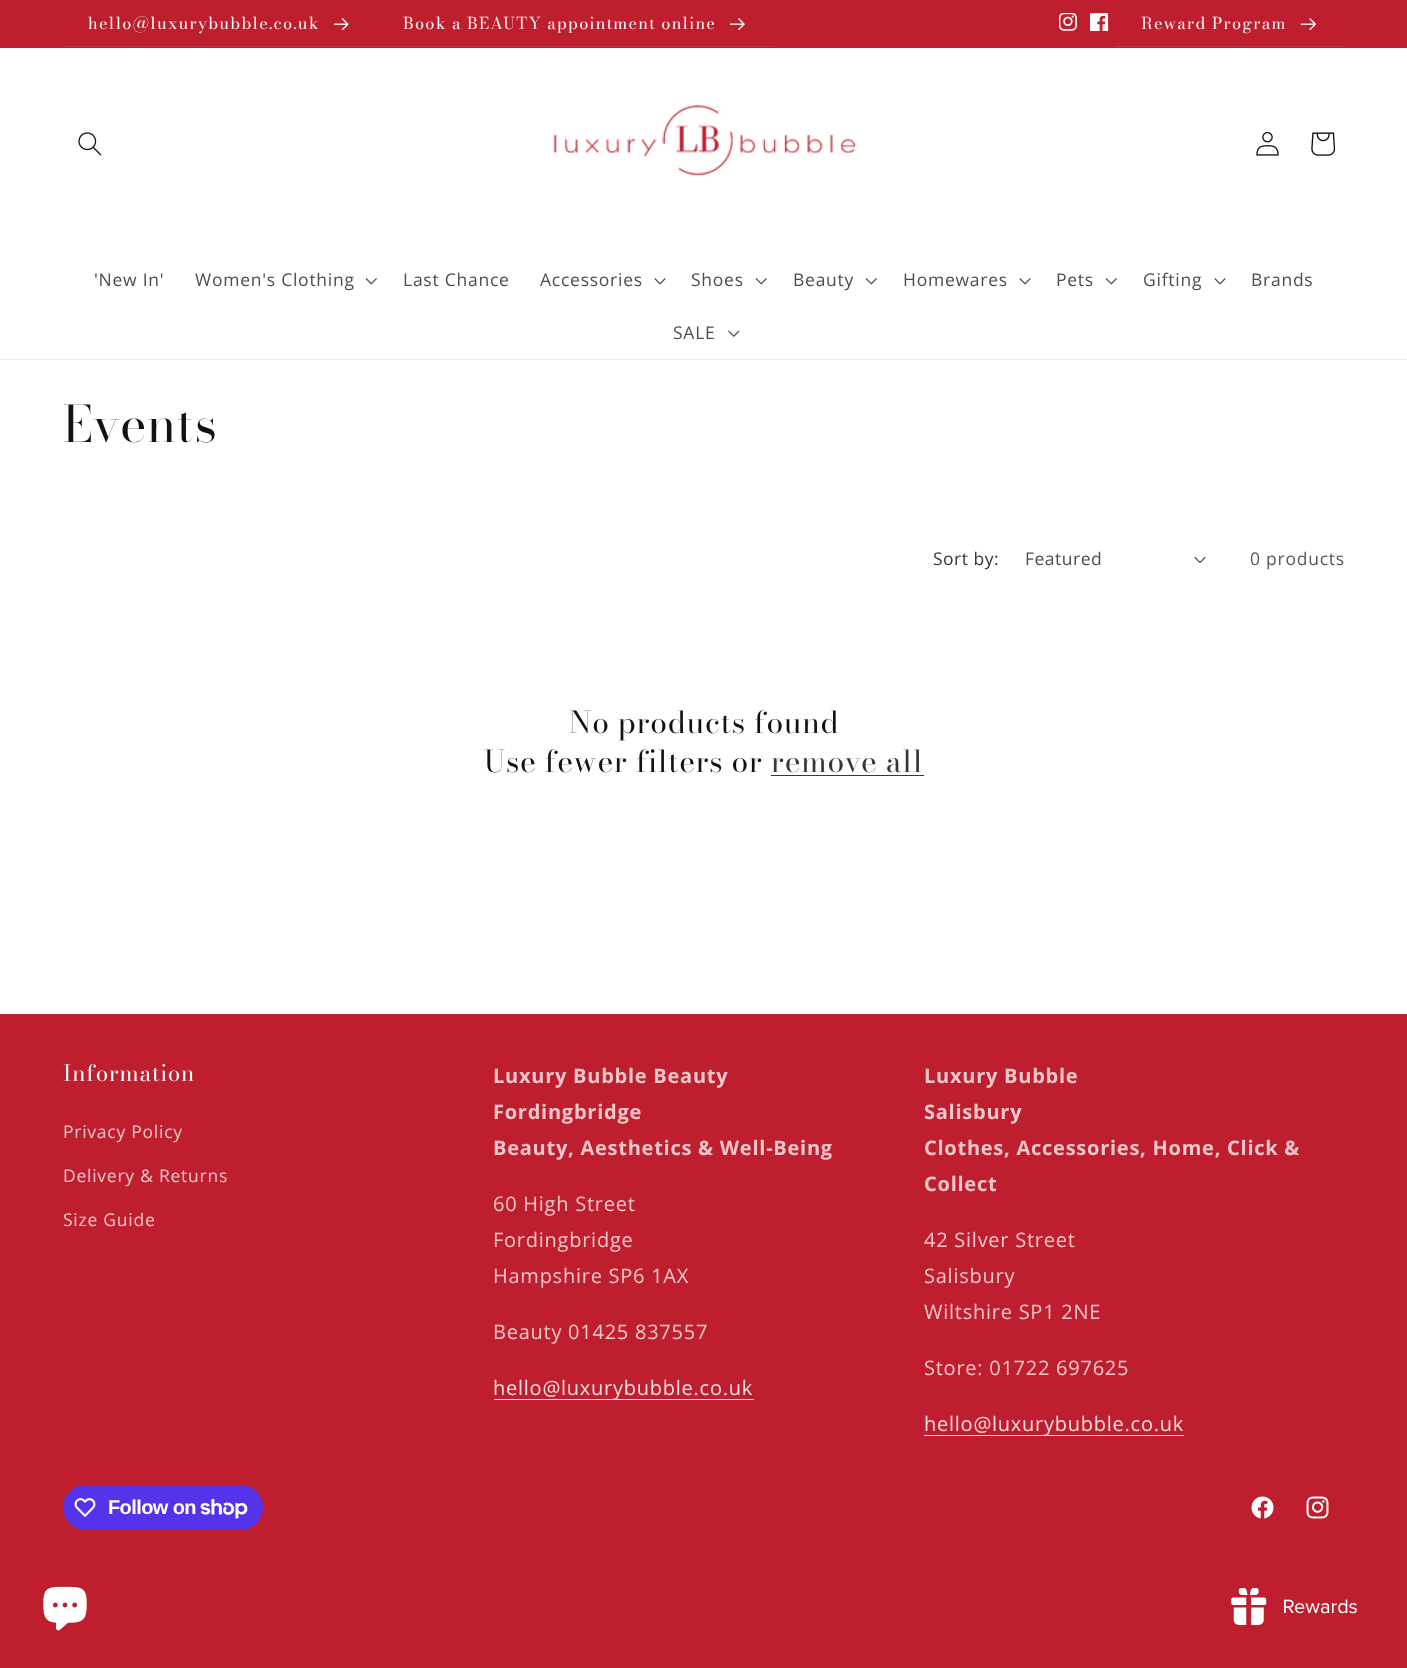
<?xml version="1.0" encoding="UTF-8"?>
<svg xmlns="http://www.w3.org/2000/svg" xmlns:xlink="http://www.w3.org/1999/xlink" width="1407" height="1668">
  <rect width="100%" height="100%" fill="#ffffff" />
  <rect width="1407" height="48" fill="#be1e2d" />
  <rect x="63" y="46" width="711" height="1" fill="#c3303e" />
  <image x="334" y="18" width="15" height="12" xlink:href="image1.png" />
  <image x="730" y="18" width="15" height="12" xlink:href="image2.png" />
  <image x="1059" y="13" width="18" height="18" xlink:href="image3.png" />
  <image x="1090" y="13" width="19" height="18" xlink:href="image4.png" />
  <rect x="1115" y="46" width="230" height="1" fill="#c3303e" />
  <image x="1301" y="18" width="15" height="12" xlink:href="image5.png" />
  <rect y="359" width="1407" height="1" fill="#ececec" />
  <image x="78" y="132" width="24" height="24" xlink:href="image6.png" />
  <image x="553" y="104" width="303" height="72" xlink:href="image7.png" />
  <image x="1256" y="131" width="23" height="25" xlink:href="image8.png" />
  <image x="1311" y="132" width="25" height="24" xlink:href="image9.png" />
  <image x="365" y="278" width="12" height="7" xlink:href="image10.png" />
  <image x="654" y="278" width="12" height="7" xlink:href="image11.png" />
  <image x="755" y="278" width="12" height="7" xlink:href="image10.png" />
  <image x="865" y="278" width="12" height="7" xlink:href="image10.png" />
  <image x="1019" y="278" width="12" height="7" xlink:href="image11.png" />
  <image x="1105" y="278" width="12" height="7" xlink:href="image10.png" />
  <image x="1214" y="278" width="12" height="7" xlink:href="image11.png" />
  <image x="728" y="330" width="12" height="7" xlink:href="image12.png" />
  <image x="1194" y="557" width="12" height="6" xlink:href="image13.png" />
  <rect x="771" y="775" width="153" height="1" fill="#363636" />
  <rect y="1014" width="1407" height="654" fill="#be1e2d" />
  <rect x="494" y="1399" width="260" height="1" fill="#f5dde0" />
  <rect x="924" y="1435" width="260" height="1" fill="#f5dde0" />
  <rect x="63" y="1485" width="200" height="45" rx="22.5" fill="#5433eb" />
  <image x="74" y="1498" width="22" height="19" xlink:href="image14.png" />
  <image x="200" y="1499" width="48" height="20" xlink:href="image15.png" />
  <image x="1251" y="1496" width="23" height="23" xlink:href="image16.png" />
  <image x="1306" y="1496" width="23" height="23" xlink:href="image17.png" />
  <image x="43" y="1586" width="44" height="45" xlink:href="image18.png" />
  <image x="1231" y="1588" width="126" height="37" xlink:href="image19.png" />
  <text x="88" y="29" style="font-family: 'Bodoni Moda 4'; font-size: 16.25px; letter-spacing: 1.25px; fill: #ffffff">hello@luxurybubble.co.uk</text>
  <text x="403" y="29" style="font-family: 'Bodoni Moda 4'; font-size: 16.25px; letter-spacing: 1.25px; fill: #ffffff">Book a BEAUTY appointment online</text>
  <text x="1141" y="29" style="font-family: 'Bodoni Moda 4'; font-size: 16.25px; letter-spacing: 1.25px; fill: #ffffff">Reward Program</text>
  <text x="94" y="286" style="font-family: Open Sans; font-size: 17.5px; letter-spacing: 0.75px; fill: #4d4d4d">'New In'</text>
  <text x="195" y="286" style="font-family: Open Sans; font-size: 17.5px; letter-spacing: 0.75px; fill: #4d4d4d">Women's Clothing</text>
  <text x="403" y="286" style="font-family: Open Sans; font-size: 17.5px; letter-spacing: 0.75px; fill: #4d4d4d">Last Chance</text>
  <text x="540" y="286" style="font-family: Open Sans; font-size: 17.5px; letter-spacing: 0.75px; fill: #4d4d4d">Accessories</text>
  <text x="691" y="286" style="font-family: Open Sans; font-size: 17.5px; letter-spacing: 0.75px; fill: #4d4d4d">Shoes</text>
  <text x="793" y="286" style="font-family: Open Sans; font-size: 17.5px; letter-spacing: 0.75px; fill: #4d4d4d">Beauty</text>
  <text x="903" y="286" style="font-family: Open Sans; font-size: 17.5px; letter-spacing: 0.75px; fill: #4d4d4d">Homewares</text>
  <text x="1056" y="286" style="font-family: Open Sans; font-size: 17.5px; letter-spacing: 0.75px; fill: #4d4d4d">Pets</text>
  <text x="1143" y="286" style="font-family: Open Sans; font-size: 17.5px; letter-spacing: 0.75px; fill: #4d4d4d">Gifting</text>
  <text x="1251" y="286" style="font-family: Open Sans; font-size: 17.5px; letter-spacing: 0.75px; fill: #4d4d4d">Brands</text>
  <text x="673" y="339" style="font-family: Open Sans; font-size: 17.5px; letter-spacing: 0.75px; fill: #4d4d4d">SALE</text>
  <text x="63" y="442" style="font-family: Bodoni Moda; font-size: 50px; letter-spacing: 0.75px; fill: #121212">Events</text>
  <text x="933" y="565" style="font-family: Open Sans; font-size: 17.5px; letter-spacing: 0.5px; fill: #363636">Sort by:</text>
  <text x="1025" y="565" style="font-family: Open Sans; font-size: 17.5px; letter-spacing: 0.5px; fill: #4d4d4d">Featured</text>
  <text x="1250" y="565" style="font-family: Open Sans; font-size: 17.5px; letter-spacing: 0.75px; fill: #595959">0 products</text>
  <text x="569" y="733" style="font-family: 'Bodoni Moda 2'; font-size: 30px; letter-spacing: 0.75px; fill: #121212">No products found</text>
  <text x="484" y="772" style="font-family: 'Bodoni Moda 2'; font-size: 30px; letter-spacing: 0.75px; fill: #121212">Use fewer filters or</text>
  <text x="771" y="772" style="font-family: 'Bodoni Moda 2'; font-size: 30px; letter-spacing: 0.75px; fill: #363636">remove all</text>
  <text x="63" y="1081" style="font-family: 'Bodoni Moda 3'; font-size: 22.5px; letter-spacing: 0.75px; fill: #ffffff">Information</text>
  <text x="63" y="1138" style="font-family: Open Sans; font-size: 17.5px; letter-spacing: 0.75px; fill: #efc7cb">Privacy Policy</text>
  <text x="63" y="1182" style="font-family: Open Sans; font-size: 17.5px; letter-spacing: 0.75px; fill: #efc7cb">Delivery &amp; Returns</text>
  <text x="63" y="1226" style="font-family: Open Sans; font-size: 17.5px; letter-spacing: 0.75px; fill: #efc7cb">Size Guide</text>
  <text x="493" y="1083" style="font-family: Open Sans; font-size: 20px; font-weight: bold; letter-spacing: 0.75px; fill: #efc7cb">Luxury Bubble Beauty</text>
  <text x="493" y="1119" style="font-family: Open Sans; font-size: 20px; font-weight: bold; letter-spacing: 0.75px; fill: #efc7cb">Fordingbridge</text>
  <text x="493" y="1155" style="font-family: Open Sans; font-size: 20px; font-weight: bold; letter-spacing: 0.75px; fill: #efc7cb">Beauty, Aesthetics &amp; Well-Being</text>
  <text x="493" y="1211" style="font-family: Open Sans; font-size: 20px; letter-spacing: 0.75px; fill: #efc7cb">60 High Street</text>
  <text x="493" y="1247" style="font-family: Open Sans; font-size: 20px; letter-spacing: 0.75px; fill: #efc7cb">Fordingbridge</text>
  <text x="493" y="1283" style="font-family: Open Sans; font-size: 20px; letter-spacing: 0.75px; fill: #efc7cb">Hampshire SP6 1AX</text>
  <text x="493" y="1339" style="font-family: Open Sans; font-size: 20px; letter-spacing: 0.75px; fill: #efc7cb">Beauty 01425 837557</text>
  <text x="493" y="1395" style="font-family: Open Sans; font-size: 20px; letter-spacing: 0.75px; fill: #f5dde0">hello@luxurybubble.co.uk</text>
  <text x="924" y="1083" style="font-family: Open Sans; font-size: 20px; font-weight: bold; letter-spacing: 0.75px; fill: #efc7cb">Luxury Bubble</text>
  <text x="924" y="1119" style="font-family: Open Sans; font-size: 20px; font-weight: bold; letter-spacing: 0.75px; fill: #efc7cb">Salisbury</text>
  <text x="924" y="1155" style="font-family: Open Sans; font-size: 20px; font-weight: bold; letter-spacing: 0.75px; fill: #efc7cb">Clothes, Accessories, Home, Click &amp;</text>
  <text x="924" y="1191" style="font-family: Open Sans; font-size: 20px; font-weight: bold; letter-spacing: 0.75px; fill: #efc7cb">Collect</text>
  <text x="924" y="1247" style="font-family: Open Sans; font-size: 20px; letter-spacing: 0.75px; fill: #efc7cb">42 Silver Street</text>
  <text x="924" y="1283" style="font-family: Open Sans; font-size: 20px; letter-spacing: 0.75px; fill: #efc7cb">Salisbury</text>
  <text x="924" y="1319" style="font-family: Open Sans; font-size: 20px; letter-spacing: 0.75px; fill: #efc7cb">Wiltshire SP1 2NE</text>
  <text x="924" y="1375" style="font-family: Open Sans; font-size: 20px; letter-spacing: 0.75px; fill: #efc7cb">Store: 01722 697625</text>
  <text x="924" y="1431" style="font-family: Open Sans; font-size: 20px; letter-spacing: 0.75px; fill: #f5dde0">hello@luxurybubble.co.uk</text>
  <text x="108" y="1514" style="font-family: Liberation Sans; font-size: 20px; font-weight: bold; letter-spacing: -0.6px; fill: #ffffff">Follow on</text>
</svg>
